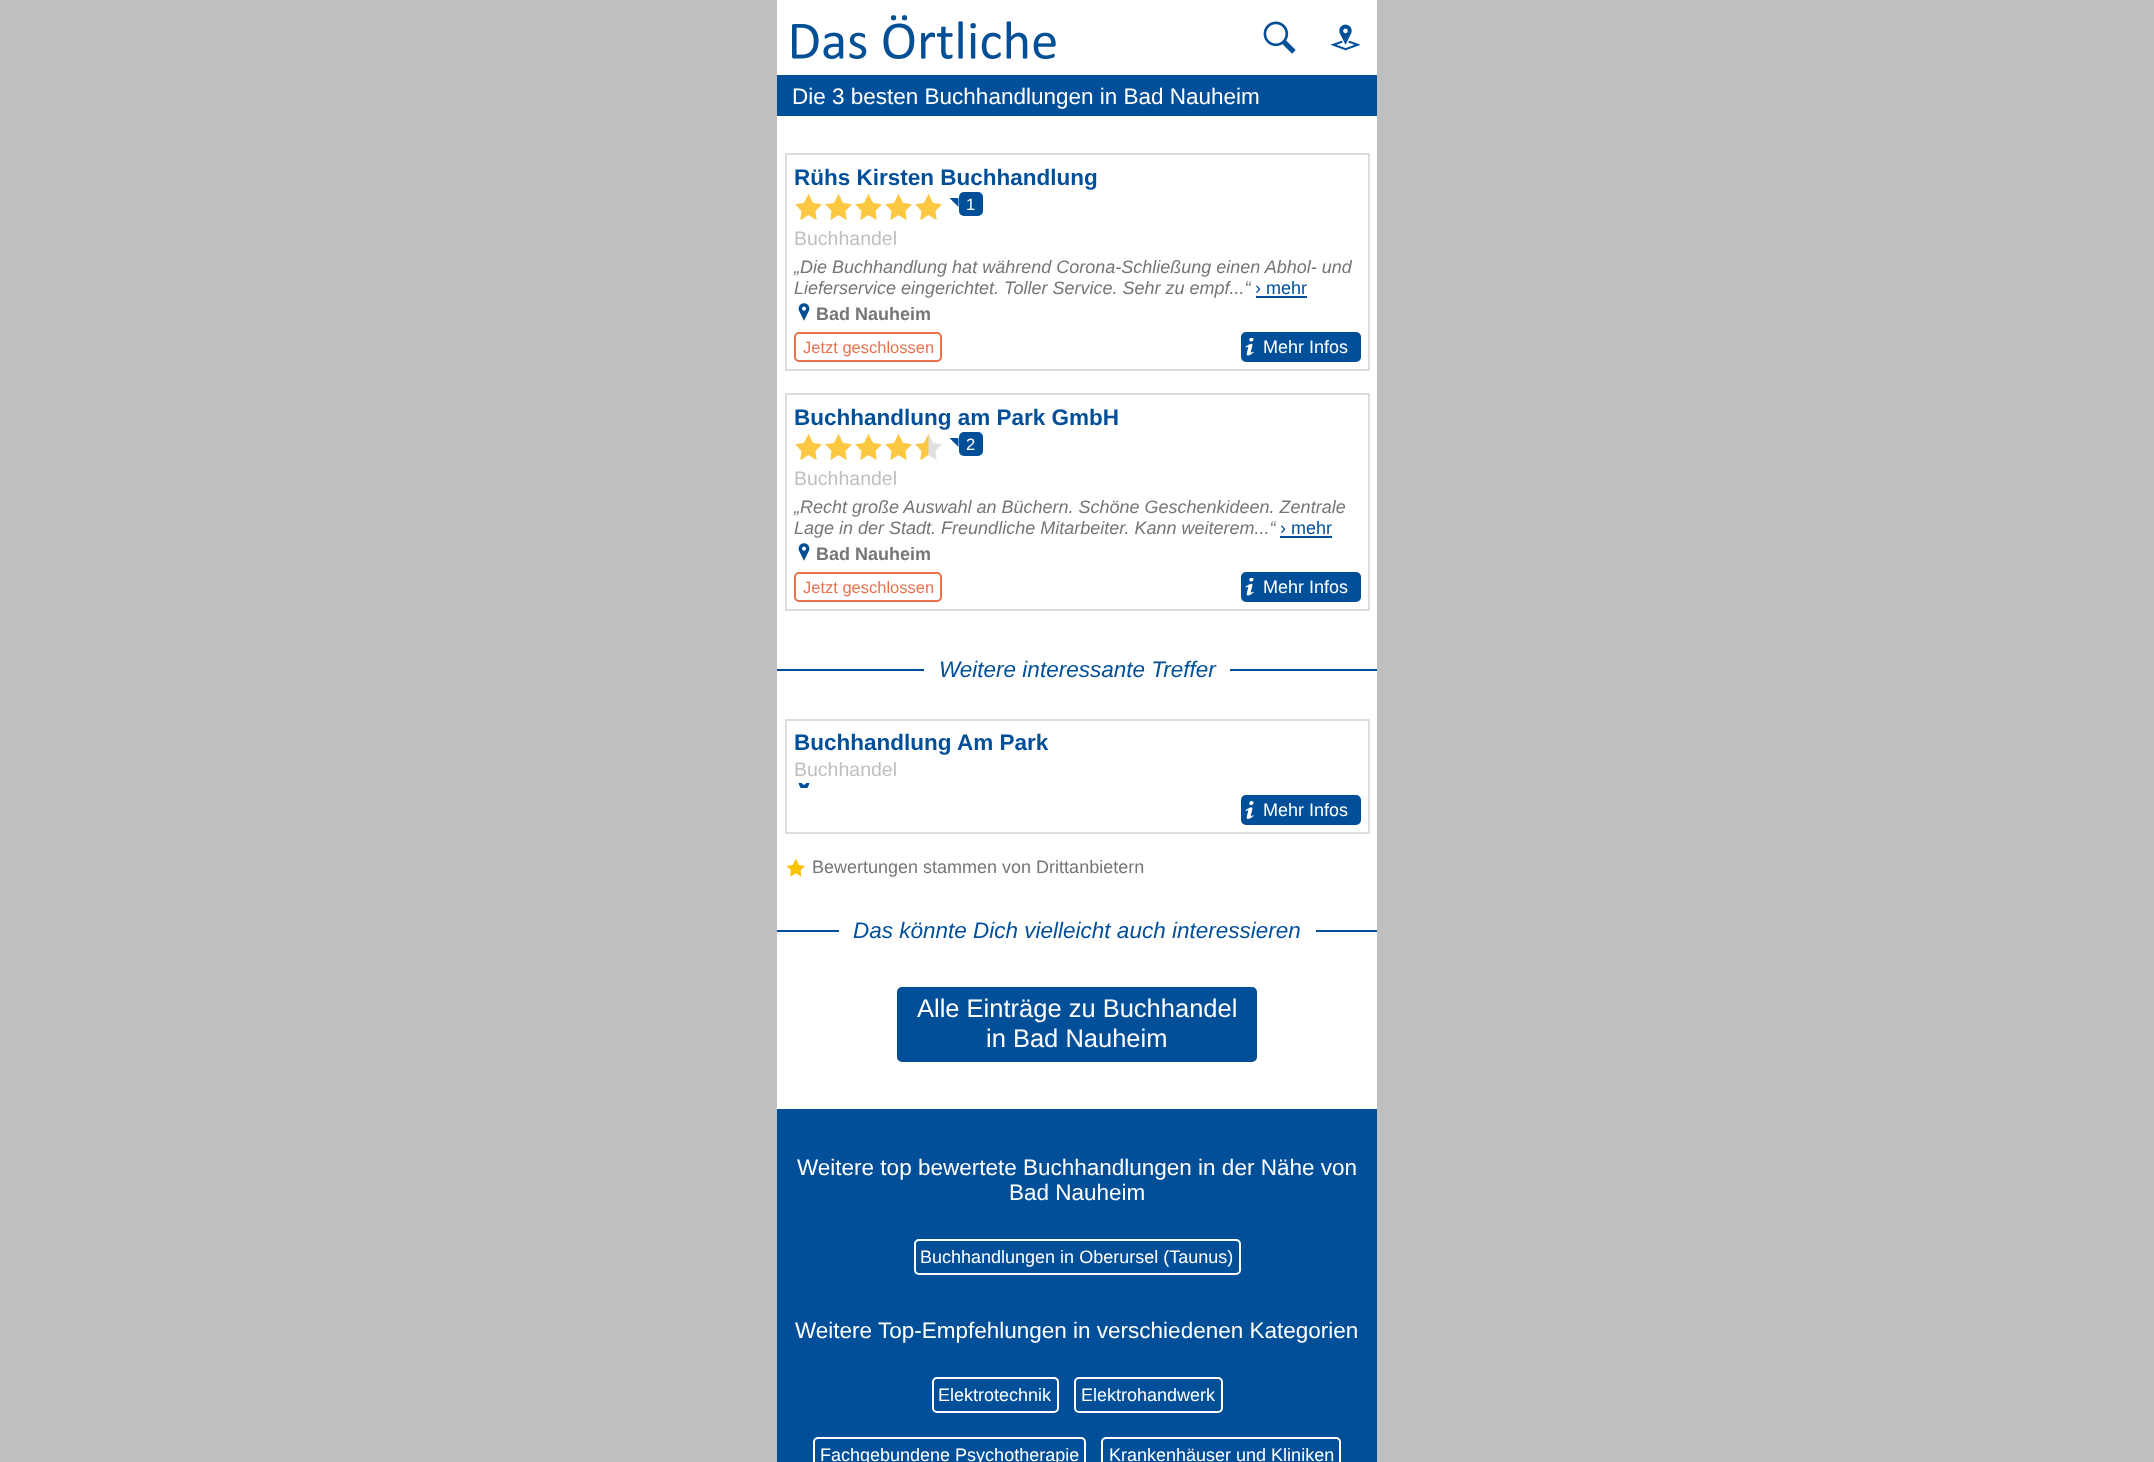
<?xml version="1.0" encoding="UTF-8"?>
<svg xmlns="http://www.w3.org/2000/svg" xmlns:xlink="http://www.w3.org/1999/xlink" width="2154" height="1462">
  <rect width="100%" height="100%" fill="#bfbfbf" />
  <rect x="777" width="600" height="75" fill="#ffffff" />
  <image x="792" y="15" width="264" height="44" xlink:href="image1.png" />
  <image x="1263" y="21" width="33" height="33" xlink:href="image2.png" />
  <image x="1330" y="24" width="31" height="27" xlink:href="image3.png" />
  <rect x="777" y="75" width="600" height="1387" fill="#024f99" />
  <rect x="777" y="116" width="600" height="517" fill="#ffffff" />
  <rect x="786" y="154" width="583" height="216" fill="none" stroke="#dddddd" stroke-width="2" />
  <image x="795" y="194" width="27" height="26" xlink:href="image4.png" />
  <image x="825" y="194" width="27" height="26" xlink:href="image4.png" />
  <image x="855" y="194" width="27" height="26" xlink:href="image4.png" />
  <image x="885" y="194" width="27" height="26" xlink:href="image4.png" />
  <image x="915" y="194" width="27" height="26" xlink:href="image4.png" />
  <rect x="959" y="192" width="24" height="24" rx="5" fill="#024f99" />
  <path d="M 958.5 198 v 9 l -9 -9 z" fill="#024f99" />
  <rect x="1256" y="296" width="51" height="2" fill="#024f99" />
  <image x="798" y="303" width="12" height="18" xlink:href="image5.png" />
  <rect x="795" y="333" width="146" height="28" rx="4" fill="none" stroke="#e7724c" stroke-width="2" />
  <rect x="1241" y="332" width="120" height="30" rx="5" fill="#024f99" />
  <image x="1245" y="338" width="9" height="18" xlink:href="image6.png" />
  <rect x="786" y="394" width="583" height="216" fill="none" stroke="#dddddd" stroke-width="2" />
  <image x="795" y="434" width="27" height="26" xlink:href="image4.png" />
  <image x="825" y="434" width="27" height="26" xlink:href="image4.png" />
  <image x="855" y="434" width="27" height="26" xlink:href="image4.png" />
  <image x="885" y="434" width="27" height="26" xlink:href="image4.png" />
  <image x="915" y="434" width="27" height="26" xlink:href="image7.png" />
  <rect x="959" y="432" width="24" height="24" rx="5" fill="#024f99" />
  <path d="M 958.5 438 v 9 l -9 -9 z" fill="#024f99" />
  <rect x="1280" y="536" width="52" height="2" fill="#024f99" />
  <image x="798" y="543" width="12" height="18" xlink:href="image5.png" />
  <rect x="795" y="573" width="146" height="28" rx="4" fill="none" stroke="#e7724c" stroke-width="2" />
  <rect x="1241" y="572" width="120" height="30" rx="5" fill="#024f99" />
  <image x="1245" y="578" width="9" height="18" xlink:href="image6.png" />
  <rect x="777" y="633" width="600" height="261" fill="#ffffff" />
  <rect x="777" y="669" width="600" height="2" fill="#024f99" />
  <rect x="924" y="669" width="306" height="2" fill="#ffffff" />
  <rect x="786" y="720" width="583" height="113" fill="none" stroke="#dddddd" stroke-width="2" />
  <image x="798" y="783" width="12" height="5" xlink:href="image8.png" />
  <rect x="1241" y="795" width="120" height="30" rx="5" fill="#024f99" />
  <image x="1245" y="801" width="9" height="18" xlink:href="image9.png" />
  <image x="786" y="858" width="19" height="19" xlink:href="image10.png" />
  <rect x="777" y="894" width="600" height="215" fill="#ffffff" />
  <rect x="777" y="930" width="600" height="2" fill="#024f99" />
  <rect x="839" y="930" width="477" height="2" fill="#ffffff" />
  <rect x="898" y="988" width="358" height="73" rx="4" fill="#024f99" stroke="#024f99" stroke-width="2" />
  <rect x="915" y="1240" width="325" height="34" rx="4" fill="none" stroke="#ffffff" stroke-width="2" />
  <rect x="933" y="1378" width="125" height="34" rx="4" fill="none" stroke="#ffffff" stroke-width="2" />
  <rect x="1075" y="1378" width="147" height="34" rx="4" fill="none" stroke="#ffffff" stroke-width="2" />
  <rect x="814" y="1438" width="271" height="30" rx="4" fill="none" stroke="#ffffff" stroke-width="2" />
  <rect x="1102" y="1438" width="238" height="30" rx="4" fill="none" stroke="#ffffff" stroke-width="2" />
  <text x="792" y="104" style="font-family: Liberation Sans; font-size: 22.5px; fill: #ffffff">Die 3 besten Buchhandlungen in Bad Nauheim</text>
  <text x="794" y="185" style="font-family: Liberation Sans; font-size: 22.5px; font-weight: bold; fill: #024f99">Rühs Kirsten Buchhandlung</text>
  <text x="966" y="210" style="font-family: Liberation Sans; font-size: 16.5px; fill: #ffffff">1</text>
  <text x="794" y="245" style="font-family: Liberation Sans; font-size: 19.5px; fill: #bfbfbf">Buchhandel</text>
  <text x="794" y="273" style="font-family: Liberation Sans; font-size: 18px; font-style: italic; fill: #767676">„Die Buchhandlung hat während Corona-Schließung einen Abhol- und</text>
  <text x="794" y="294" style="font-family: Liberation Sans; font-size: 18px; font-style: italic; fill: #767676">Lieferservice eingerichtet. Toller Service. Sehr zu empf...“</text>
  <text x="1255" y="294" style="font-family: Liberation Sans; font-size: 18px; fill: #024f99">› mehr</text>
  <text x="816" y="320" style="font-family: Liberation Sans; font-size: 18px; font-weight: bold; fill: #767676">Bad Nauheim</text>
  <text x="803" y="353" style="font-family: Liberation Sans; font-size: 16.5px; fill: #e7724c">Jetzt geschlossen</text>
  <text x="1263" y="353" style="font-family: Liberation Sans; font-size: 18px; fill: #ffffff">Mehr Infos</text>
  <text x="794" y="425" style="font-family: Liberation Sans; font-size: 22.5px; font-weight: bold; fill: #024f99">Buchhandlung am Park GmbH</text>
  <text x="966" y="450" style="font-family: Liberation Sans; font-size: 16.5px; fill: #ffffff">2</text>
  <text x="794" y="485" style="font-family: Liberation Sans; font-size: 19.5px; fill: #bfbfbf">Buchhandel</text>
  <text x="794" y="513" style="font-family: Liberation Sans; font-size: 18px; font-style: italic; fill: #767676">„Recht große Auswahl an Büchern. Schöne Geschenkideen. Zentrale</text>
  <text x="794" y="534" style="font-family: Liberation Sans; font-size: 18px; font-style: italic; fill: #767676">Lage in der Stadt. Freundliche Mitarbeiter. Kann weiterem...“</text>
  <text x="1280" y="534" style="font-family: Liberation Sans; font-size: 18px; fill: #024f99">› mehr</text>
  <text x="816" y="560" style="font-family: Liberation Sans; font-size: 18px; font-weight: bold; fill: #767676">Bad Nauheim</text>
  <text x="803" y="593" style="font-family: Liberation Sans; font-size: 16.5px; fill: #e7724c">Jetzt geschlossen</text>
  <text x="1263" y="593" style="font-family: Liberation Sans; font-size: 18px; fill: #ffffff">Mehr Infos</text>
  <text x="939" y="677" style="font-family: Liberation Sans; font-size: 22.5px; font-style: italic; fill: #024f99">Weitere interessante Treffer</text>
  <text x="794" y="750" style="font-family: Liberation Sans; font-size: 22.5px; font-weight: bold; fill: #024f99">Buchhandlung Am Park</text>
  <text x="794" y="776" style="font-family: Liberation Sans; font-size: 19.5px; fill: #bfbfbf">Buchhandel</text>
  <text x="1263" y="816" style="font-family: Liberation Sans; font-size: 18px; fill: #ffffff">Mehr Infos</text>
  <text x="812" y="873" style="font-family: Liberation Sans; font-size: 18px; fill: #767676">Bewertungen stammen von Drittanbietern</text>
  <text x="853" y="938" style="font-family: Liberation Sans; font-size: 22.5px; font-style: italic; fill: #024f99">Das könnte Dich vielleicht auch interessieren</text>
  <text x="917" y="1017" style="font-family: Liberation Sans; font-size: 25.5px; fill: #ffffff">Alle Einträge zu Buchhandel</text>
  <text x="986" y="1047" style="font-family: Liberation Sans; font-size: 25.5px; fill: #ffffff">in Bad Nauheim</text>
  <text x="797" y="1175" style="font-family: Liberation Sans; font-size: 22.5px; fill: #ffffff">Weitere top bewertete Buchhandlungen in der Nähe von</text>
  <text x="1009" y="1200" style="font-family: Liberation Sans; font-size: 22.5px; fill: #ffffff">Bad Nauheim</text>
  <text x="920" y="1263" style="font-family: Liberation Sans; font-size: 18px; fill: #ffffff">Buchhandlungen in Oberursel (Taunus)</text>
  <text x="795" y="1338" style="font-family: Liberation Sans; font-size: 22.5px; fill: #ffffff">Weitere Top-Empfehlungen in verschiedenen Kategorien</text>
  <text x="938" y="1401" style="font-family: Liberation Sans; font-size: 18px; fill: #ffffff">Elektrotechnik</text>
  <text x="1081" y="1401" style="font-family: Liberation Sans; font-size: 18px; fill: #ffffff">Elektrohandwerk</text>
  <text x="820" y="1461" style="font-family: Liberation Sans; font-size: 18px; fill: #ffffff">Fachgebundene Psychotherapie</text>
  <text x="1109" y="1461" style="font-family: Liberation Sans; font-size: 18px; fill: #ffffff">Krankenhäuser und Kliniken</text>
</svg>
